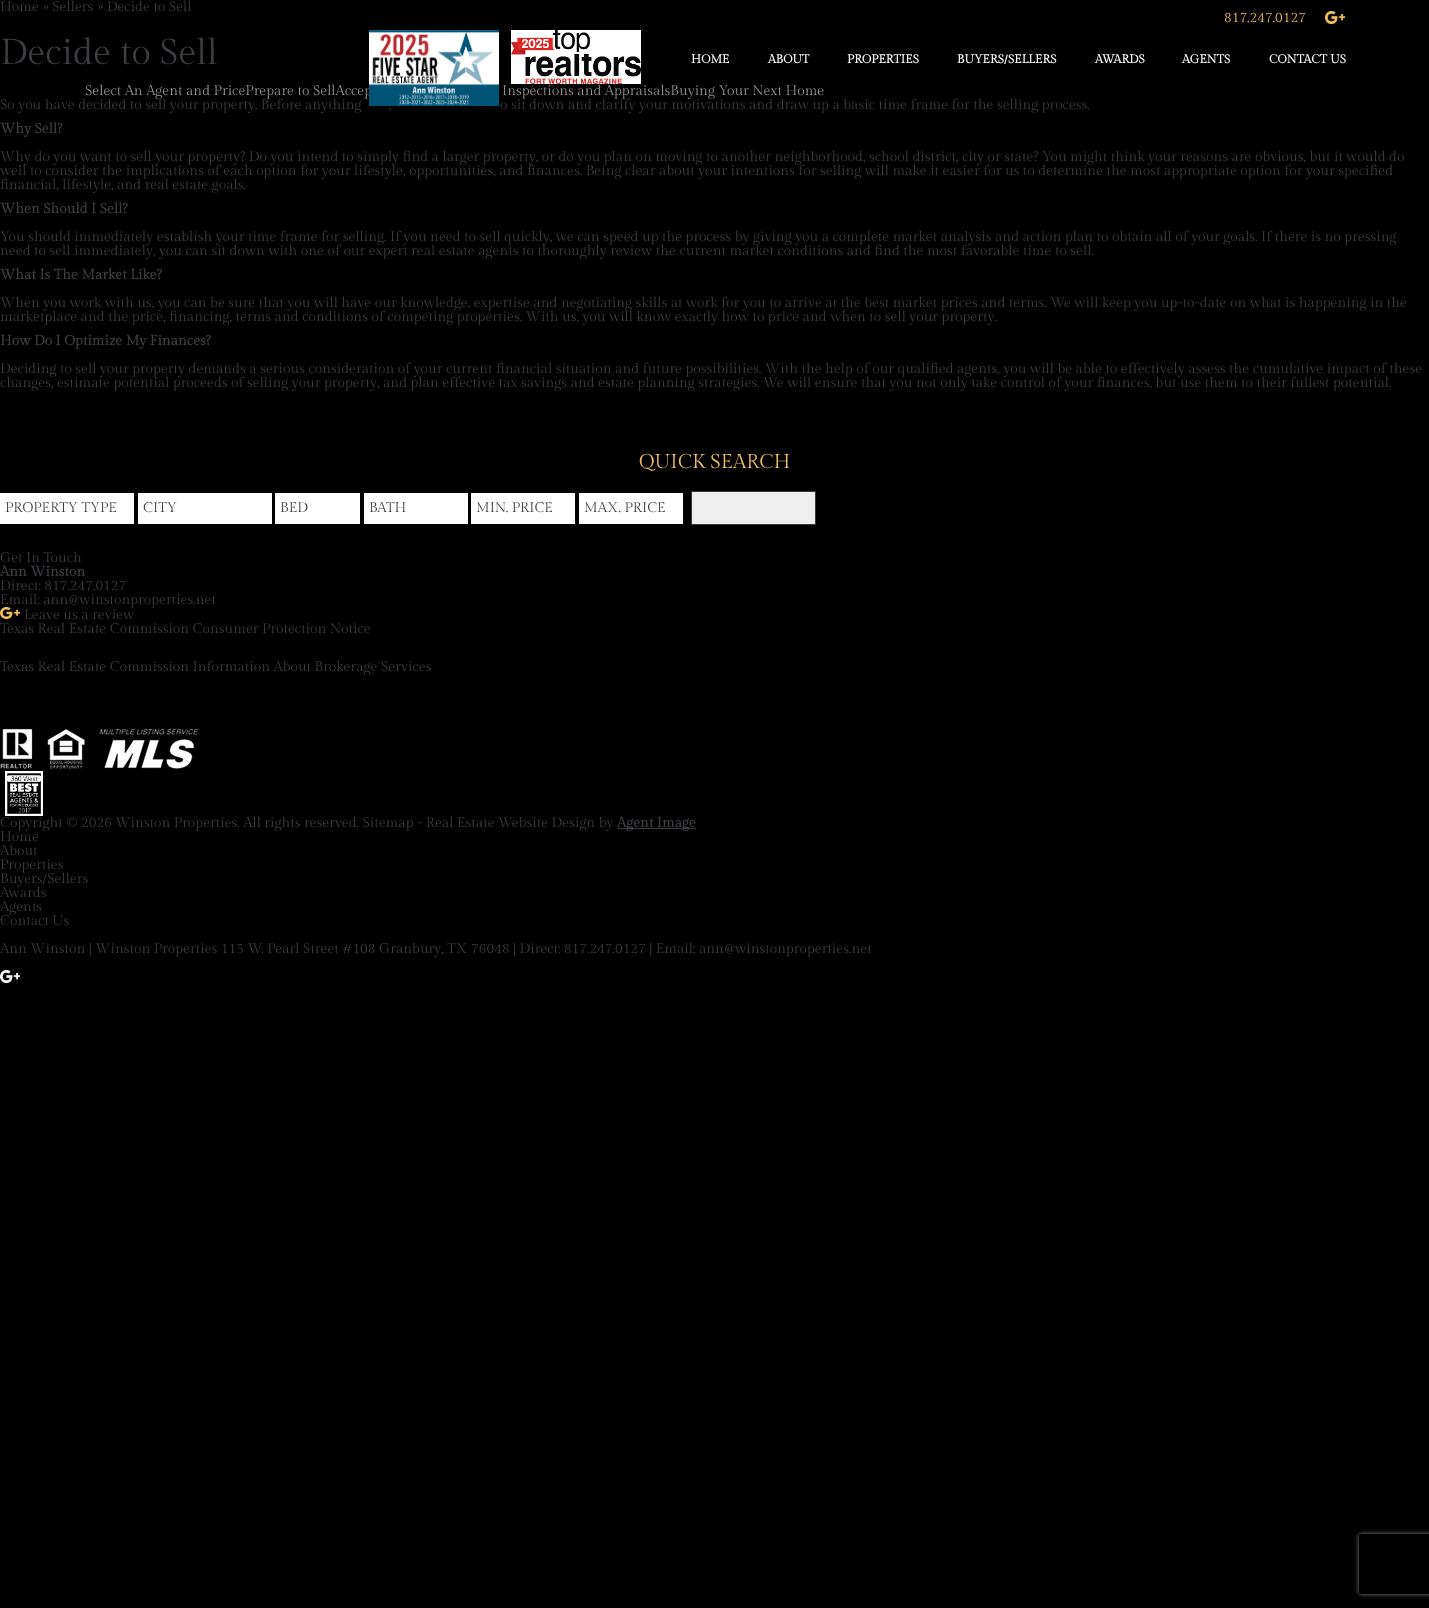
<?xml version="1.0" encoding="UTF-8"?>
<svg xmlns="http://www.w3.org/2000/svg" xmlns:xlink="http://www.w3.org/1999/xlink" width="1429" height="1608">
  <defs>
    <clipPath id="clip1"><path d="M 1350 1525 h 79 v 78 h -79 z m 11 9 h 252 c 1 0 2 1 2 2 v 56 c 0 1 -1 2 -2 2 h -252 c -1 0 -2 -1 -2 -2 v -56 c 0 -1 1 -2 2 -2 z" clip-rule="evenodd" /></clipPath>
  </defs>
  <rect width="100%" height="100%" fill="#000000" />
  <rect y="493" width="134" height="31" fill="#ffffff" />
  <rect x="138" y="493" width="134" height="31" fill="#ffffff" />
  <rect x="275" y="493" width="85" height="31" fill="#ffffff" />
  <rect x="364" y="493" width="104" height="31" fill="#ffffff" />
  <rect x="471" y="493" width="104" height="31" fill="#ffffff" />
  <rect x="579" y="493" width="104" height="31" fill="#ffffff" />
  <rect x="691.5" y="491.5" width="124" height="33" fill="none" stroke="#373732" />
  <rect x="692" y="492" width="123" height="32" fill="#efefef" />
  <image x="1325" y="11" width="20" height="13" xlink:href="image2.png" />
  <image x="511" y="30" width="130" height="54" xlink:href="image4.png" />
  <image x="0" y="728" width="199" height="41" xlink:href="image5.png" />
  <image x="5" y="771" width="38" height="45" xlink:href="image6.png" />
  <rect x="617" y="828" width="79" height="1" fill="#403b41" />
  <image x="0" y="970" width="20" height="13" xlink:href="image7.png" />
  <g clip-path="url(#clip1)">
    <rect x="1359" y="1534" width="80" height="60" rx="2" fill="#808080" filter="blur(2.5px)" />
  </g>
  <text x="0" y="11" style="font-family: Gilda Display; font-size: 14px; fill: #403b41">Home » Sellers » Decide to Sell</text>
  <text x="0" y="64" style="font-family: Gilda Display; font-size: 36px; fill: #403b41">Decide to Sell</text>
  <text x="85" y="95" style="font-family: Gilda Display; font-size: 14px; fill: #969393">Select An Agent and PricePrepare to SellAccep</text>
  <text x="502" y="95" style="font-family: Gilda Display; font-size: 14px; fill: #969393">Inspections and AppraisalsBuying Your Next Home</text>
  <text x="0" y="109" style="font-family: Gilda Display; font-size: 14px; fill: #403b41">So you have decided to sell your property. Before anything</text>
  <text x="389" y="109" style="font-family: Gilda Display; font-size: 14px; fill: #403b41">,</text>
  <text x="500" y="109" style="font-family: Gilda Display; font-size: 14px; fill: #403b41">o sit down and clarify your motivations and draw up a basic time frame for the selling process.</text>
  <text x="0" y="133" style="font-family: Gilda Display; font-size: 14px; font-weight: bold; fill: #403b41">Why Sell?</text>
  <text x="0" y="161" style="font-family: Gilda Display; font-size: 14px; fill: #403b41">Why do you want to sell your property? Do you intend to simply find a larger property, or do you plan on moving to another neighborhood, school district, city or state? You might think your reasons are obvious, but it would do</text>
  <text x="0" y="175" style="font-family: Gilda Display; font-size: 14px; fill: #403b41">well to consider the implications of each option for your lifestyle, opportunities, and finances. Being clear about your intentions for selling will make it easier for us to determine the most appropriate option for your specified</text>
  <text x="0" y="189" style="font-family: Gilda Display; font-size: 14px; fill: #403b41">financial, lifestyle, and real estate goals.</text>
  <text x="0" y="213" style="font-family: Gilda Display; font-size: 14px; font-weight: bold; fill: #403b41">When Should I Sell?</text>
  <text x="0" y="241" style="font-family: Gilda Display; font-size: 14px; fill: #403b41">You should immediately establish your time frame for selling. If you need to sell quickly, we can speed up the process by giving you a complete market analysis and action plan to obtain all of your goals. If there is no pressing</text>
  <text x="0" y="255" style="font-family: Gilda Display; font-size: 14px; fill: #403b41">need to sell immediately, you can sit down with one of our expert real estate agents to thoroughly review the current market conditions and find the most favorable time to sell.</text>
  <text x="0" y="279" style="font-family: Gilda Display; font-size: 14px; font-weight: bold; fill: #403b41">What Is The Market Like?</text>
  <text x="0" y="307" style="font-family: Gilda Display; font-size: 14px; fill: #403b41">When you work with us, you can be sure that you will have our knowledge, expertise and negotiating skills at work for you to arrive at the best market prices and terms. We will keep you up-to-date on what is happening in the</text>
  <text x="0" y="321" style="font-family: Gilda Display; font-size: 14px; fill: #403b41">marketplace and the price, financing, terms and conditions of competing properties. With us, you will know exactly how to price and when to sell your property.</text>
  <text x="0" y="345" style="font-family: Gilda Display; font-size: 14px; font-weight: bold; fill: #403b41">How Do I Optimize My Finances?</text>
  <text x="0" y="373" style="font-family: Gilda Display; font-size: 14px; fill: #403b41">Deciding to sell your property demands a serious consideration of your current financial situation and future possibilities. With the help of our qualified agents, you will be able to effectively assess the cumulative impact of these</text>
  <text x="0" y="387" style="font-family: Gilda Display; font-size: 14px; fill: #403b41">changes, estimate potential proceeds of selling your property, and plan effective tax savings and estate planning strategies. We will ensure that you not only take control of your finances, but use them to their fullest potential.</text>
  <text x="639" y="468" style="font-family: Gilda Display; font-size: 20px; fill: #f0c05d">QUICK SEARCH</text>
  <text x="5" y="512" style="font-family: Gilda Display; font-size: 14px; fill: #403b41">PROPERTY TYPE</text>
  <text x="143" y="512" style="font-family: Gilda Display; font-size: 14px; fill: #403b41">CITY</text>
  <text x="280" y="512" style="font-family: Gilda Display; font-size: 14px; fill: #403b41">BED</text>
  <text x="369" y="512" style="font-family: Gilda Display; font-size: 14px; fill: #403b41">BATH</text>
  <text x="476" y="512" style="font-family: Gilda Display; font-size: 14px; fill: #403b41">MIN. PRICE</text>
  <text x="584" y="512" style="font-family: Gilda Display; font-size: 14px; fill: #403b41">MAX. PRICE</text>
  <text x="0" y="562" style="font-family: Gilda Display; font-size: 14px; fill: #403b41">Get In Touch</text>
  <text x="0" y="576" style="font-family: Gilda Display; font-size: 14px; font-weight: bold; fill: #403b41">Ann Winston</text>
  <text x="0" y="590" style="font-family: Gilda Display; font-size: 14px; fill: #403b41">Direct: 817.247.0127</text>
  <text x="0" y="604" style="font-family: Gilda Display; font-size: 14px; fill: #403b41">Email: ann@winstonproperties.net</text>
  <image x="0" y="607" width="20" height="12" xlink:href="image1.png" />
  <text x="24" y="619" style="font-family: Gilda Display; font-size: 14px; fill: #403b41">Leave us a review</text>
  <text x="1224" y="22" style="font-family: Gilda Display; font-size: 14px; fill: #f0c05d">817.247.0127</text>
  <image x="369" y="30" width="130" height="76" xlink:href="image3.png" />
  <text x="691" y="63" style="font-family: Gilda Display; font-size: 12px; font-weight: bold; fill: #fcfaf7">HOME</text>
  <text x="768" y="63" style="font-family: Gilda Display; font-size: 12px; font-weight: bold; fill: #fcfaf7">ABOUT</text>
  <text x="847" y="63" style="font-family: Gilda Display; font-size: 12px; font-weight: bold; fill: #fcfaf7">PROPERTIES</text>
  <text x="957" y="63" style="font-family: Gilda Display; font-size: 12px; font-weight: bold; fill: #fcfaf7">BUYERS/SELLERS</text>
  <text x="1095" y="63" style="font-family: Gilda Display; font-size: 12px; font-weight: bold; fill: #fcfaf7">AWARDS</text>
  <text x="1182" y="63" style="font-family: Gilda Display; font-size: 12px; font-weight: bold; fill: #fcfaf7">AGENTS</text>
  <text x="1269" y="63" style="font-family: Gilda Display; font-size: 12px; font-weight: bold; fill: #fcfaf7">CONTACT US</text>
  <text x="0" y="633" style="font-family: Gilda Display; font-size: 14px; fill: #403b41">Texas Real Estate Commission Consumer Protection Notice</text>
  <text x="0" y="671" style="font-family: Gilda Display; font-size: 14px; fill: #403b41">Texas Real Estate Commission Information About Brokerage Services</text>
  <text x="0" y="827" style="font-family: Gilda Display; font-size: 14px; fill: #403b41">Copyright © 2026 Winston Properties. All rights reserved. Sitemap - Real Estate Website Design by</text>
  <text x="617" y="827" style="font-family: Gilda Display; font-size: 14px; font-weight: bold; fill: #403b41">Agent Image</text>
  <text x="0" y="841" style="font-family: Gilda Display; font-size: 14px; fill: #403b41">Home</text>
  <text x="0" y="855" style="font-family: Gilda Display; font-size: 14px; fill: #403b41">About</text>
  <text x="0" y="869" style="font-family: Gilda Display; font-size: 14px; fill: #403b41">Properties</text>
  <text x="0" y="883" style="font-family: Gilda Display; font-size: 14px; fill: #403b41">Buyers/Sellers</text>
  <text x="0" y="897" style="font-family: Gilda Display; font-size: 14px; fill: #403b41">Awards</text>
  <text x="0" y="911" style="font-family: Gilda Display; font-size: 14px; fill: #403b41">Agents</text>
  <text x="0" y="925" style="font-family: Gilda Display; font-size: 14px; fill: #403b41">Contact Us</text>
  <text x="0" y="953" style="font-family: Gilda Display; font-size: 14px; fill: #403b41">Ann Winston | Winston Properties 115 W. Pearl Street #108 Granbury, TX 76048 | Direct: 817.247.0127 | Email: ann@winstonproperties.net</text>
</svg>
